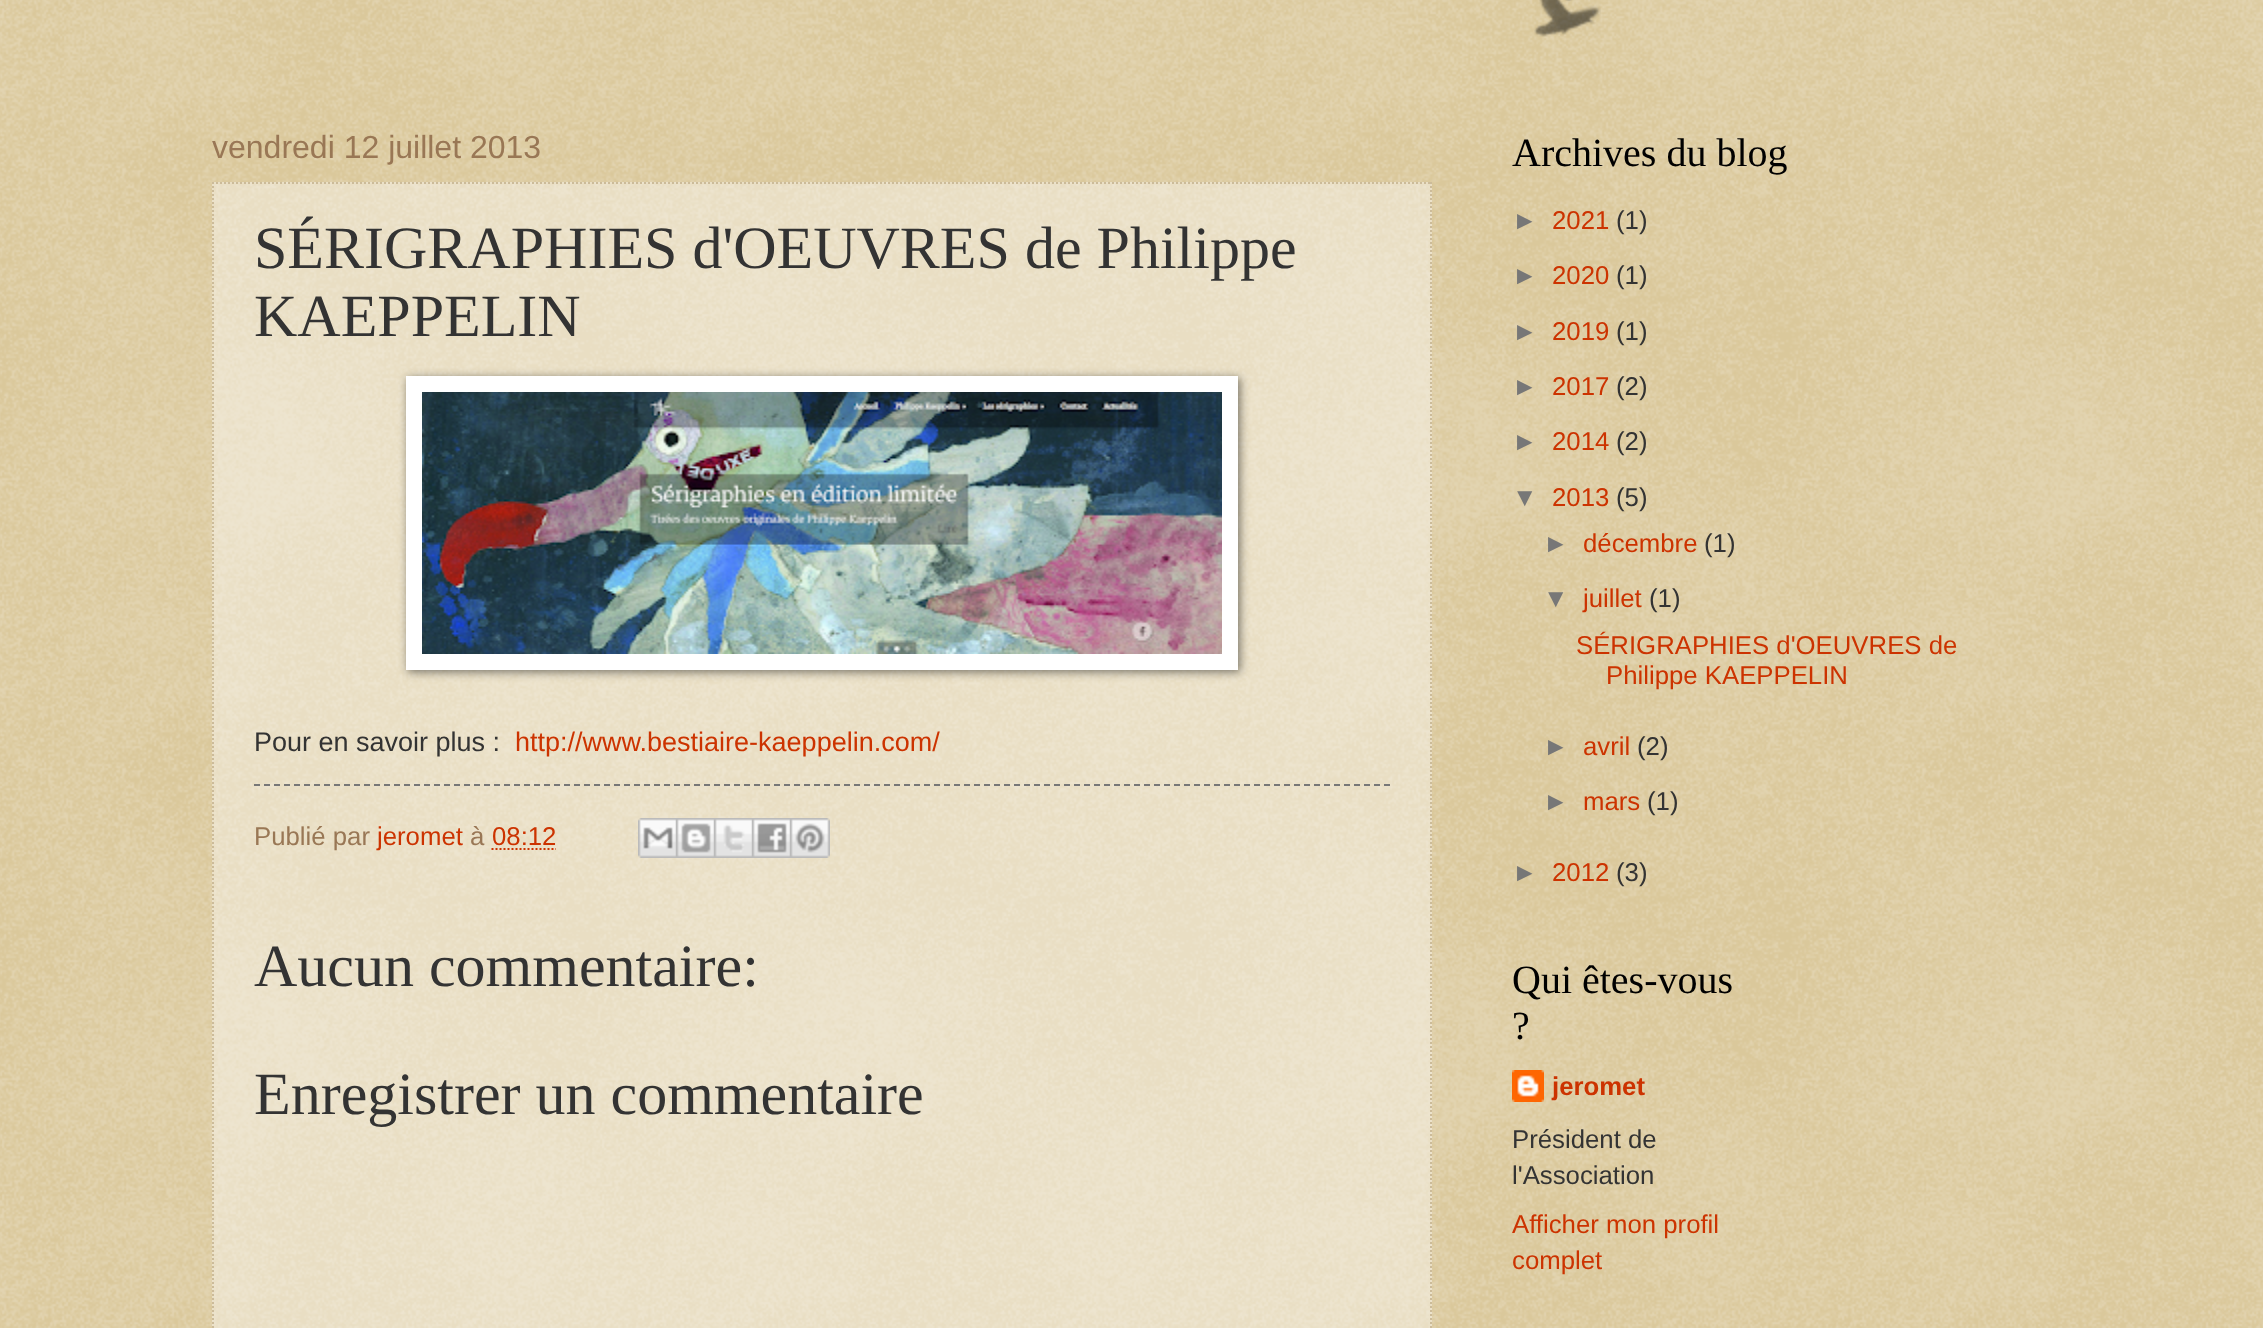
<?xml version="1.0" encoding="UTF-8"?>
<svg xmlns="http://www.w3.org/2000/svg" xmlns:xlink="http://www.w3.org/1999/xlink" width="2263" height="1328">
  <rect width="100%" height="100%" fill="#c0a154" />
  <image x="0" y="0" width="2263" height="1328" xlink:href="image1.png" />
  <image x="1534" y="0" width="67" height="37" xlink:href="image2.png" />
  <rect x="212" y="182" width="1220" height="1146" fill="#ffffff" fill-opacity="0.4" />
  <path d="M 212 183 h 1220" fill="none" stroke="#ccbb99" stroke-width="2" stroke-dasharray="2 2" />
  <path d="M 1431 182 v 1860" fill="none" stroke="#ccbb99" stroke-width="2" stroke-dasharray="2 2" />
  <path d="M 213 182 v 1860" fill="none" stroke="#ccbb99" stroke-width="2" stroke-dasharray="2 2" />
  <rect x="408" y="378" width="832" height="294" fill="#000000" fill-opacity="0.5" filter="blur(5px)" />
  <rect x="406" y="376" width="832" height="294" fill="#ffffff" />
  <image x="422" y="392" width="800" height="262" xlink:href="image3.png" />
  <path d="M 254 785 h 1136" fill="none" stroke="#777777" stroke-width="2" stroke-dasharray="6 4" />
  <path d="M 491.5 849 h 64.5" fill="none" stroke="#cc3300" stroke-width="2" stroke-dasharray="2 2" />
  <image x="638" y="818" width="38" height="40" xlink:href="image4.png" />
  <image x="676" y="818" width="38" height="40" xlink:href="image5.png" />
  <image x="714" y="818" width="38" height="40" xlink:href="image6.png" />
  <image x="752" y="818" width="38" height="40" xlink:href="image7.png" />
  <image x="790" y="818" width="40" height="40" xlink:href="image8.png" />
  <image x="1512" y="1070" width="32" height="32" xlink:href="image9.png" />
  <text x="212" y="158" style="font-family: Liberation Sans; font-size: 32px; fill: #997755">vendredi 12 juillet 2013</text>
  <text x="254" y="268" style="font-family: Liberation Serif; font-size: 60px; fill: #333333">SÉRIGRAPHIES d'OEUVRES de Philippe</text>
  <text x="254" y="336" style="font-family: Liberation Serif; font-size: 60px; fill: #333333">KAEPPELIN</text>
  <text x="254" y="751" style="font-family: Liberation Sans; font-size: 27px; fill: #333333">Pour en savoir plus :</text>
  <text x="515" y="751" style="font-family: Liberation Sans; font-size: 27px; fill: #cc3300">http://www.bestiaire-kaeppelin.com/</text>
  <text x="254" y="845" style="font-family: Liberation Sans; font-size: 25.75px; fill: #997755">Publié par</text>
  <text x="377" y="845" style="font-family: Liberation Sans; font-size: 25.75px; fill: #cc3300">jeromet</text>
  <text x="470" y="845" style="font-family: Liberation Sans; font-size: 25.75px; fill: #997755">à</text>
  <text x="492" y="845" style="font-family: Liberation Sans; font-size: 25.75px; fill: #cc3300">08:12</text>
  <text x="254" y="986" style="font-family: Liberation Serif; font-size: 60px; fill: #333333">Aucun commentaire:</text>
  <text x="254" y="1114" style="font-family: Liberation Serif; font-size: 60px; fill: #333333">Enregistrer un commentaire</text>
  <text x="1512" y="166" style="font-family: Liberation Serif; font-size: 40px; fill: #000000">Archives du blog</text>
  <text x="1512" y="229" style="font-family: Liberation Sans; font-size: 25.75px; fill: #777777">►</text>
  <text x="1552" y="229" style="font-family: Liberation Sans; font-size: 25.75px; fill: #cc3300">2021</text>
  <text x="1616" y="229" style="font-family: Liberation Sans; font-size: 25.75px; fill: #333333">(1)</text>
  <text x="1512" y="284" style="font-family: Liberation Sans; font-size: 25.75px; fill: #777777">►</text>
  <text x="1552" y="284" style="font-family: Liberation Sans; font-size: 25.75px; fill: #cc3300">2020</text>
  <text x="1616" y="284" style="font-family: Liberation Sans; font-size: 25.75px; fill: #333333">(1)</text>
  <text x="1512" y="340" style="font-family: Liberation Sans; font-size: 25.75px; fill: #777777">►</text>
  <text x="1552" y="340" style="font-family: Liberation Sans; font-size: 25.75px; fill: #cc3300">2019</text>
  <text x="1616" y="340" style="font-family: Liberation Sans; font-size: 25.75px; fill: #333333">(1)</text>
  <text x="1512" y="395" style="font-family: Liberation Sans; font-size: 25.75px; fill: #777777">►</text>
  <text x="1552" y="395" style="font-family: Liberation Sans; font-size: 25.75px; fill: #cc3300">2017</text>
  <text x="1616" y="395" style="font-family: Liberation Sans; font-size: 25.75px; fill: #333333">(2)</text>
  <text x="1512" y="450" style="font-family: Liberation Sans; font-size: 25.75px; fill: #777777">►</text>
  <text x="1552" y="450" style="font-family: Liberation Sans; font-size: 25.75px; fill: #cc3300">2014</text>
  <text x="1616" y="450" style="font-family: Liberation Sans; font-size: 25.75px; fill: #333333">(2)</text>
  <text x="1512" y="506" style="font-family: Liberation Sans; font-size: 25.75px; fill: #777777">▼</text>
  <text x="1552" y="506" style="font-family: Liberation Sans; font-size: 25.75px; fill: #cc3300">2013</text>
  <text x="1616" y="506" style="font-family: Liberation Sans; font-size: 25.75px; fill: #333333">(5)</text>
  <text x="1543" y="552" style="font-family: Liberation Sans; font-size: 25.75px; fill: #777777">►</text>
  <text x="1583" y="552" style="font-family: Liberation Sans; font-size: 25.75px; fill: #cc3300">décembre</text>
  <text x="1704" y="552" style="font-family: Liberation Sans; font-size: 25.75px; fill: #333333">(1)</text>
  <text x="1543" y="607" style="font-family: Liberation Sans; font-size: 25.75px; fill: #777777">▼</text>
  <text x="1583" y="607" style="font-family: Liberation Sans; font-size: 25.75px; fill: #cc3300">juillet</text>
  <text x="1649" y="607" style="font-family: Liberation Sans; font-size: 25.75px; fill: #333333">(1)</text>
  <text x="1576" y="654" style="font-family: Liberation Sans; font-size: 25.75px; fill: #cc3300">SÉRIGRAPHIES d'OEUVRES de</text>
  <text x="1606" y="684" style="font-family: Liberation Sans; font-size: 25.75px; fill: #cc3300">Philippe KAEPPELIN</text>
  <text x="1543" y="755" style="font-family: Liberation Sans; font-size: 25.75px; fill: #777777">►</text>
  <text x="1583" y="755" style="font-family: Liberation Sans; font-size: 25.75px; fill: #cc3300">avril</text>
  <text x="1637" y="755" style="font-family: Liberation Sans; font-size: 25.75px; fill: #333333">(2)</text>
  <text x="1543" y="810" style="font-family: Liberation Sans; font-size: 25.75px; fill: #777777">►</text>
  <text x="1583" y="810" style="font-family: Liberation Sans; font-size: 25.75px; fill: #cc3300">mars</text>
  <text x="1647" y="810" style="font-family: Liberation Sans; font-size: 25.75px; fill: #333333">(1)</text>
  <text x="1512" y="881" style="font-family: Liberation Sans; font-size: 25.75px; fill: #777777">►</text>
  <text x="1552" y="881" style="font-family: Liberation Sans; font-size: 25.75px; fill: #cc3300">2012</text>
  <text x="1616" y="881" style="font-family: Liberation Sans; font-size: 25.75px; fill: #333333">(3)</text>
  <text x="1512" y="993" style="font-family: Liberation Serif; font-size: 40px; fill: #000000">Qui êtes-vous</text>
  <text x="1512" y="1039" style="font-family: Liberation Serif; font-size: 40px; fill: #000000">?</text>
  <text x="1552" y="1095" style="font-family: Liberation Sans; font-size: 25.75px; font-weight: bold; fill: #cc3300">jeromet</text>
  <text x="1512" y="1148" style="font-family: Liberation Sans; font-size: 25.75px; fill: #333333">Président de</text>
  <text x="1512" y="1184" style="font-family: Liberation Sans; font-size: 25.75px; fill: #333333">l'Association</text>
  <text x="1512" y="1233" style="font-family: Liberation Sans; font-size: 25.75px; fill: #cc3300">Afficher mon profil</text>
  <text x="1512" y="1269" style="font-family: Liberation Sans; font-size: 25.75px; fill: #cc3300">complet</text>
</svg>
